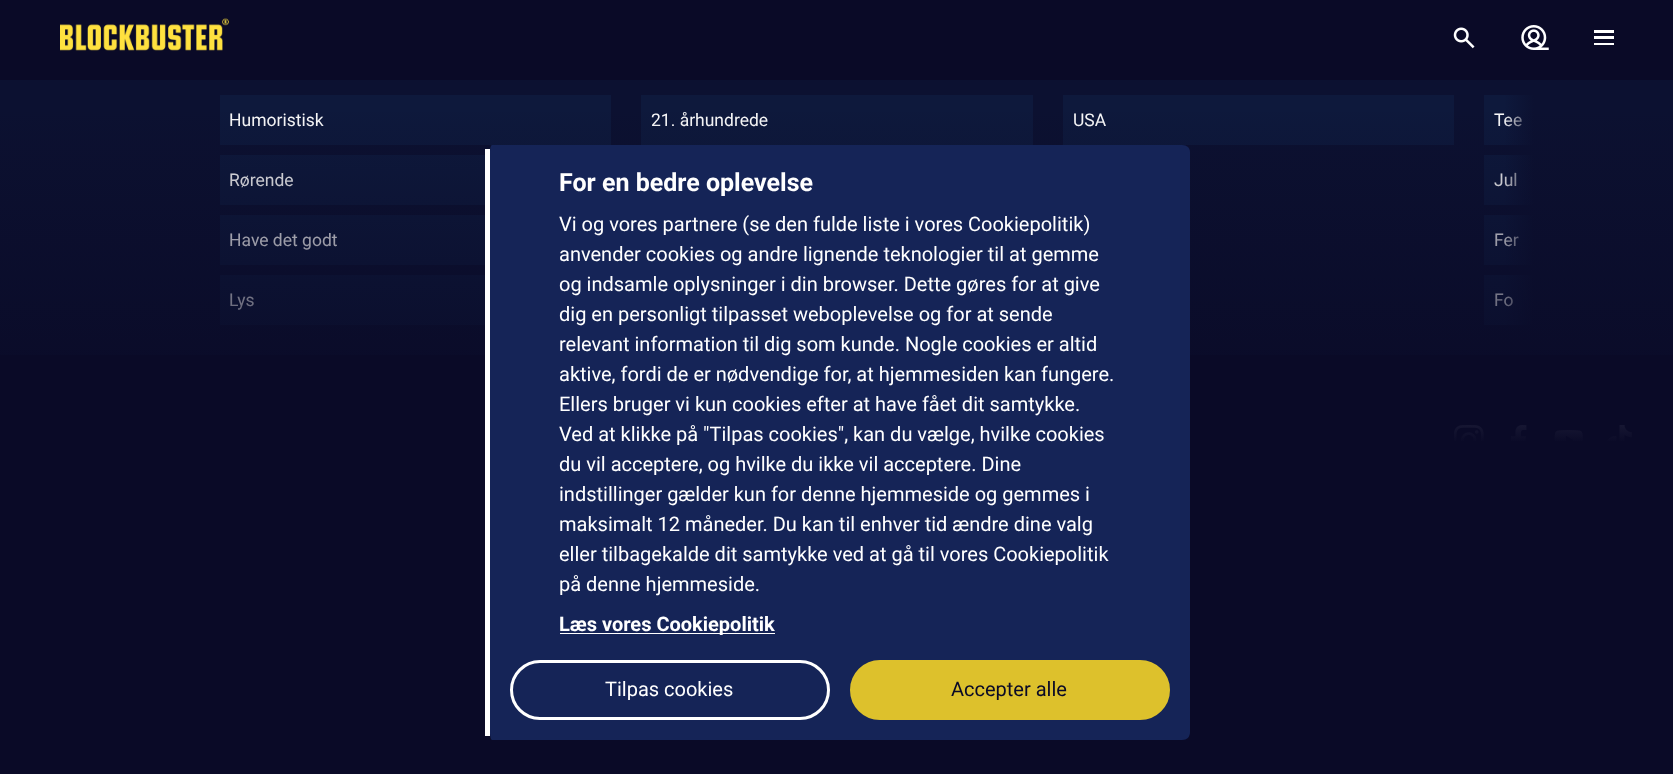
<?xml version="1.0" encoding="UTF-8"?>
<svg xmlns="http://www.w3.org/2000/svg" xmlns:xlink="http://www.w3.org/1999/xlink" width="1673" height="774">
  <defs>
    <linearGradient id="g1" gradientUnits="userSpaceOnUse" x1="1504" y1="190" x2="1534" y2="190"><stop offset="0" stop-color="#0c1131" stop-opacity="0" /><stop offset="1" stop-color="#0c1131" /></linearGradient>
    <linearGradient id="g2" gradientUnits="userSpaceOnUse" x1="837" y1="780" x2="837" y2="105"><stop offset="0" stop-color="#0a0a27" /><stop offset="0.5" stop-color="#0a0a27" /><stop offset="1" stop-color="#0a0a27" stop-opacity="0" /></linearGradient>
  </defs>
  <rect width="100%" height="100%" fill="#0c1131" />
  <rect width="1673" height="80" fill="#0a0a27" fill-opacity="0.9" />
  <image x="60" y="18" width="169" height="33" xlink:href="image1.png" />
  <image x="1453" y="27" width="22" height="22" xlink:href="image2.png" />
  <image x="1521" y="25" width="28" height="25" xlink:href="image3.png" />
  <rect x="1594" y="43" width="20" height="2" fill="#ffffff" />
  <rect x="1594" y="30" width="20" height="3" fill="#ffffff" />
  <rect x="1594" y="36" width="20" height="3" fill="#ffffff" />
  <rect x="220" y="95" width="391" height="50" fill="#0e193c" />
  <rect x="220" y="155" width="265" height="50" fill="#0e193c" />
  <rect x="220" y="215" width="265" height="50" fill="#0e193c" />
  <rect x="220" y="275" width="265" height="50" fill="#0e193c" />
  <rect x="641" y="95" width="392" height="50" fill="#0e193c" />
  <rect x="1063" y="95" width="391" height="50" fill="#0e193c" />
  <rect x="1484" y="95" width="50" height="50" fill="#0e193c" />
  <rect x="1484" y="155" width="50" height="50" fill="#0e193c" />
  <rect x="1484" y="215" width="50" height="50" fill="#0e193c" />
  <rect x="1484" y="275" width="50" height="50" fill="#0e193c" />
  <rect y="355" width="1673" height="86" fill="#0a0a27" />
  <image x="1454" y="425" width="30" height="16" xlink:href="image4.png" />
  <image x="1510" y="425" width="17" height="16" xlink:href="image5.png" />
  <image x="1554" y="430" width="29" height="11" xlink:href="image6.png" />
  <image x="1607" y="425" width="25" height="16" xlink:href="image7.png" />
  <text x="229" y="126" style="font-family: Roboto; font-size: 17.5px; fill: #ffffff">Humoristisk</text>
  <text x="229" y="186" style="font-family: Roboto; font-size: 17.5px; fill: #ffffff">Rørende</text>
  <text x="229" y="246" style="font-family: Roboto; font-size: 17.5px; fill: #ffffff">Have det godt</text>
  <text x="229" y="306" style="font-family: Roboto; font-size: 17.5px; fill: #ffffff">Lys</text>
  <text x="651" y="126" style="font-family: Roboto; font-size: 17.5px; fill: #ffffff">21. århundrede</text>
  <text x="1073" y="126" style="font-family: Roboto; font-size: 17.5px; fill: #ffffff">USA</text>
  <text x="1494" y="126" style="font-family: Roboto; font-size: 17.5px; fill: #ffffff">Tee</text>
  <text x="1494" y="186" style="font-family: Roboto; font-size: 17.5px; fill: #ffffff">Jul</text>
  <text x="1494" y="246" style="font-family: Roboto; font-size: 17.5px; fill: #ffffff">Fer</text>
  <text x="1494" y="306" style="font-family: Roboto; font-size: 17.5px; fill: #ffffff">Fo</text>
  <rect x="1505" y="95" width="29" height="230" fill="url(#g1)" />
  <rect y="112" width="1673" height="662" fill="url(#g2)" />
  <path d="M 492 145 h 690 c 5 0 8 3 8 7 v 580 c 0 5 -3 8 -8 8 h -690 c -1 0 -2 -3 -2 -8 v -580 c 0 -4 1 -7 2 -7 z" fill="#152457" />
  <rect x="485" y="149" width="5" height="587" fill="#ffffff" />
  <text x="559" y="191" style="font-family: Roboto; font-size: 25px; font-weight: bold; fill: #ffffff">For en bedre oplevelse</text>
  <text x="559" y="231" style="font-family: Roboto; font-size: 20px; fill: #ffffff">Vi og vores partnere (se den fulde liste i vores Cookiepolitik)</text>
  <text x="559" y="261" style="font-family: Roboto; font-size: 20px; fill: #ffffff">anvender cookies og andre lignende teknologier til at gemme</text>
  <text x="559" y="291" style="font-family: Roboto; font-size: 20px; fill: #ffffff">og indsamle oplysninger i din browser. Dette gøres for at give</text>
  <text x="559" y="321" style="font-family: Roboto; font-size: 20px; fill: #ffffff">dig en personligt tilpasset weboplevelse og for at sende</text>
  <text x="559" y="351" style="font-family: Roboto; font-size: 20px; fill: #ffffff">relevant information til dig som kunde. Nogle cookies er altid</text>
  <text x="559" y="381" style="font-family: Roboto; font-size: 20px; fill: #ffffff">aktive, fordi de er nødvendige for, at hjemmesiden kan fungere.</text>
  <text x="559" y="411" style="font-family: Roboto; font-size: 20px; fill: #ffffff">Ellers bruger vi kun cookies efter at have fået dit samtykke.</text>
  <text x="559" y="441" style="font-family: Roboto; font-size: 20px; fill: #ffffff">Ved at klikke på "Tilpas cookies", kan du vælge, hvilke cookies</text>
  <text x="559" y="471" style="font-family: Roboto; font-size: 20px; fill: #ffffff">du vil acceptere, og hvilke du ikke vil acceptere. Dine</text>
  <text x="559" y="501" style="font-family: Roboto; font-size: 20px; fill: #ffffff">indstillinger gælder kun for denne hjemmeside og gemmes i</text>
  <text x="559" y="531" style="font-family: Roboto; font-size: 20px; fill: #ffffff">maksimalt 12 måneder. Du kan til enhver tid ændre dine valg</text>
  <text x="559" y="561" style="font-family: Roboto; font-size: 20px; fill: #ffffff">eller tilbagekalde dit samtykke ved at gå til vores Cookiepolitik</text>
  <text x="559" y="591" style="font-family: Roboto; font-size: 20px; fill: #ffffff">på denne hjemmeside.</text>
  <rect x="560" y="633" width="215" height="1" fill="#ffffff" />
  <text x="559" y="631" style="font-family: Roboto; font-size: 20px; font-weight: bold; fill: #ffffff">Læs vores Cookiepolitik</text>
  <rect x="511.5" y="661.5" width="317" height="57" rx="28.5" fill="none" stroke="#ffffff" stroke-width="3" />
  <text x="605" y="696" style="font-family: Roboto; font-size: 20px; fill: #ffffff">Tilpas cookies</text>
  <rect x="851.5" y="661.5" width="317" height="57" rx="28.5" fill="#ddc12c" stroke="#ddc12c" stroke-width="3" />
  <text x="951" y="696" style="font-family: Roboto; font-size: 20px; fill: #0a0a27">Accepter alle</text>
</svg>
